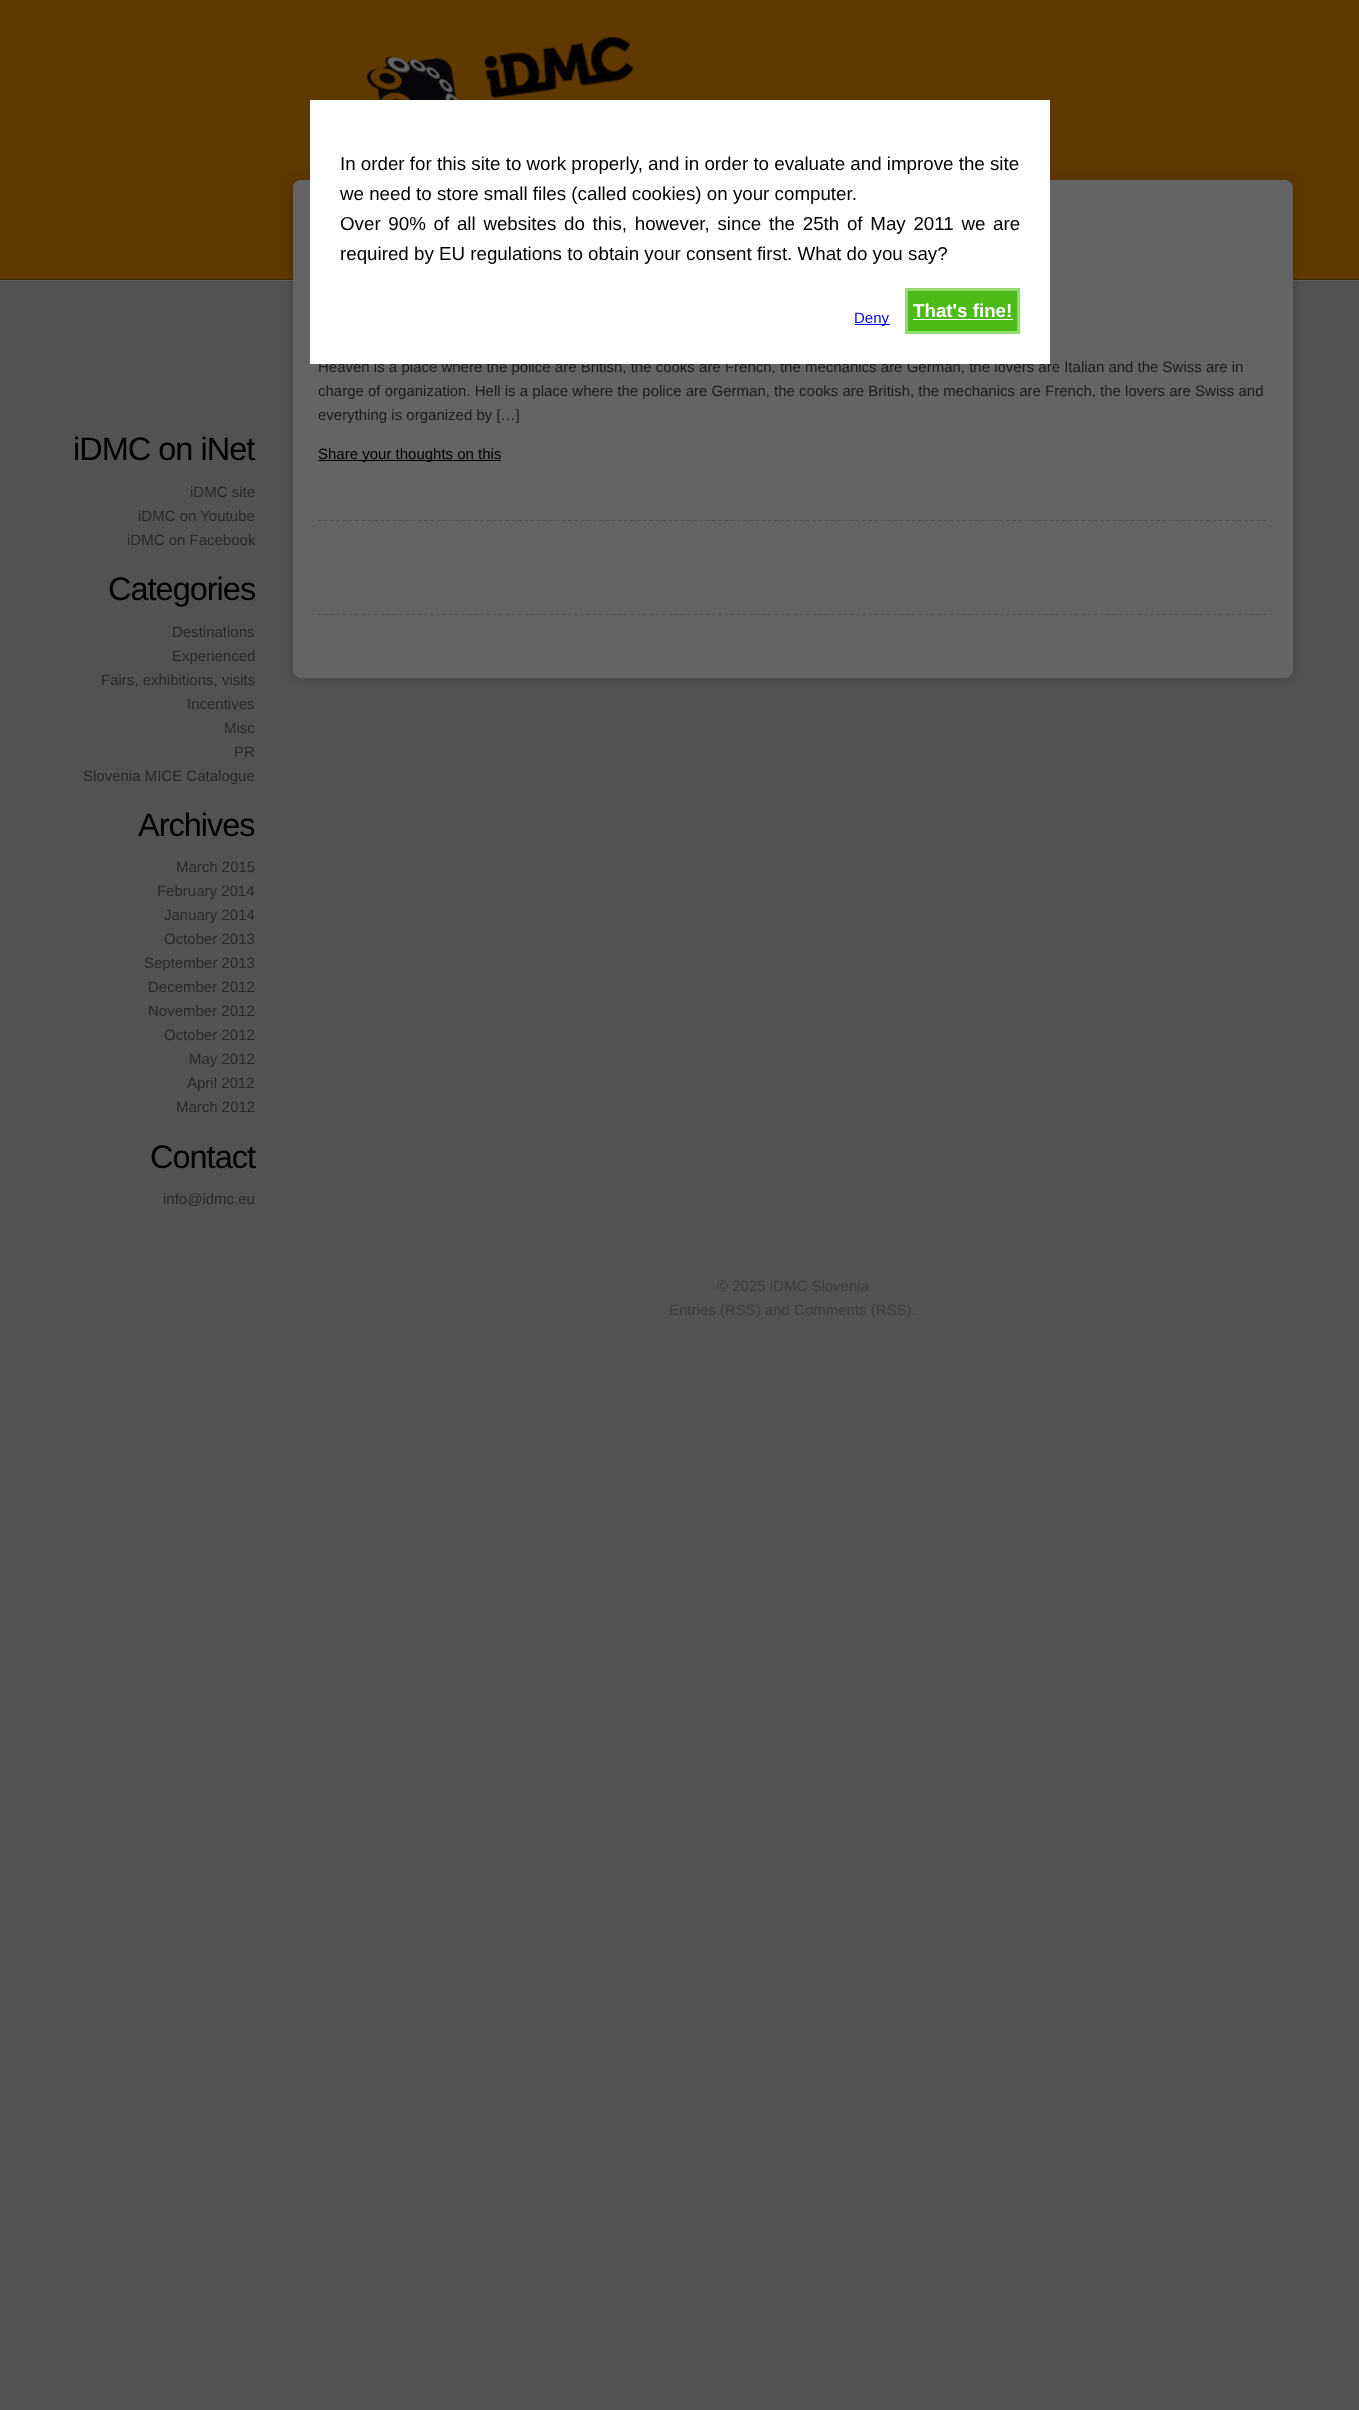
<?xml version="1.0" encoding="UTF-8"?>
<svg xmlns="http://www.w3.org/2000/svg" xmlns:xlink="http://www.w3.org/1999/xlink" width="1359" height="2410">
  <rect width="100%" height="100%" fill="#525252" />
  <rect y="280" width="1359" height="1" fill="#606060" />
  <rect width="1359" height="279" fill="#603900" />
  <rect y="279" width="1359" height="1" fill="#432800" />
  <image x="361" y="35" width="333" height="65" xlink:href="image1.png" />
  <rect x="293" y="180" width="1000" height="498" rx="8" fill="#000000" fill-opacity="0.2" filter="blur(6px)" />
  <rect x="293" y="180" width="1000" height="498" rx="8" fill="#646464" />
  <path d="M 317.5 520.5 h 950" fill="none" stroke="#525252" stroke-width="1.2" stroke-dasharray="3.75 2.51" />
  <rect x="318" y="460" width="183" height="1" fill="#000000" />
  <path d="M 317.5 614.5 h 950" fill="none" stroke="#525252" stroke-width="1.2" stroke-dasharray="3.75 2.51" />
  <text x="318" y="372" style="font-family: Liberation Sans; font-size: 15px; fill: #1b1b1b">Heaven is a place where the police are British, the cooks are French, the mechanics are German, the lovers are Italian and the Swiss are in</text>
  <rect x="310" y="100" width="740" height="264" fill="#ffffff" />
  <rect x="855" y="324" width="35" height="1" fill="#0000ee" />
  <text x="854" y="323" style="font-family: Liberation Sans; font-size: 15px; fill: #0000ee">Deny</text>
  <rect x="906.5" y="289.5" width="112" height="43" fill="#4cbb17" stroke="#93db70" stroke-width="3" />
  <text x="913" y="317" style="font-family: Liberation Sans; font-size: 18.75px; font-weight: bold; fill: #ffffff">That's fine!</text>
  <rect x="913" y="319" width="100" height="1" fill="#ffffff" />
  <text x="340" y="260" style="font-family: Liberation Sans; font-size: 18.75px; fill: #000000">required by EU regulations to obtain your consent first. What do you say?</text>
  <text x="340" y="230" word-spacing="2.5" style="font-family: Liberation Sans; font-size: 18.75px; fill: #000000">Over 90% of all websites do this, however, since the 25th of May 2011 we are</text>
  <text x="340" y="200" style="font-family: Liberation Sans; font-size: 18.75px; fill: #000000">we need to store small files (called cookies) on your computer.</text>
  <text x="340" y="170" style="font-family: Liberation Sans; font-size: 18.75px; fill: #000000">In order for this site to work properly, and in order to evaluate and improve the site</text>
  <text x="318" y="396" style="font-family: Liberation Sans; font-size: 15px; fill: #1b1b1b">charge of organization. Hell is a place where the police are German, the cooks are British, the mechanics are French, the lovers are Swiss and</text>
  <text x="318" y="420" style="font-family: Liberation Sans; font-size: 15px; fill: #1b1b1b">everything is organized by […]</text>
  <text x="318" y="459" style="font-family: Liberation Sans; font-size: 15px; fill: #000000">Share your thoughts on this</text>
  <text x="73" y="460" style="font-family: Liberation Sans; font-size: 32.5px; letter-spacing: -1px; fill: #000000">iDMC on iNet</text>
  <text x="190" y="497" style="font-family: Liberation Sans; font-size: 15px; fill: #292929">iDMC site</text>
  <text x="138" y="521" style="font-family: Liberation Sans; font-size: 15px; fill: #292929">iDMC on Youtube</text>
  <text x="127" y="545" style="font-family: Liberation Sans; font-size: 15px; fill: #292929">iDMC on Facebook</text>
  <text x="108" y="600" style="font-family: Liberation Sans; font-size: 32.5px; letter-spacing: -1px; fill: #000000">Categories</text>
  <text x="172" y="637" style="font-family: Liberation Sans; font-size: 15px; fill: #292929">Destinations</text>
  <text x="172" y="661" style="font-family: Liberation Sans; font-size: 15px; fill: #292929">Experienced</text>
  <text x="101" y="685" style="font-family: Liberation Sans; font-size: 15px; fill: #292929">Fairs, exhibitions, visits</text>
  <text x="187" y="709" style="font-family: Liberation Sans; font-size: 15px; fill: #292929">Incentives</text>
  <text x="224" y="733" style="font-family: Liberation Sans; font-size: 15px; fill: #292929">Misc</text>
  <text x="234" y="757" style="font-family: Liberation Sans; font-size: 15px; fill: #292929">PR</text>
  <text x="83" y="781" style="font-family: Liberation Sans; font-size: 15px; fill: #292929">Slovenia MICE Catalogue</text>
  <text x="138" y="836" style="font-family: Liberation Sans; font-size: 32.5px; letter-spacing: -1px; fill: #000000">Archives</text>
  <text x="176" y="872" style="font-family: Liberation Sans; font-size: 15px; fill: #292929">March 2015</text>
  <text x="157" y="896" style="font-family: Liberation Sans; font-size: 15px; fill: #292929">February 2014</text>
  <text x="164" y="920" style="font-family: Liberation Sans; font-size: 15px; fill: #292929">January 2014</text>
  <text x="164" y="944" style="font-family: Liberation Sans; font-size: 15px; fill: #292929">October 2013</text>
  <text x="144" y="968" style="font-family: Liberation Sans; font-size: 15px; fill: #292929">September 2013</text>
  <text x="148" y="992" style="font-family: Liberation Sans; font-size: 15px; fill: #292929">December 2012</text>
  <text x="148" y="1016" style="font-family: Liberation Sans; font-size: 15px; fill: #292929">November 2012</text>
  <text x="164" y="1040" style="font-family: Liberation Sans; font-size: 15px; fill: #292929">October 2012</text>
  <text x="189" y="1064" style="font-family: Liberation Sans; font-size: 15px; fill: #292929">May 2012</text>
  <text x="187" y="1088" style="font-family: Liberation Sans; font-size: 15px; fill: #292929">April 2012</text>
  <text x="176" y="1112" style="font-family: Liberation Sans; font-size: 15px; fill: #292929">March 2012</text>
  <text x="150" y="1168" style="font-family: Liberation Sans; font-size: 32.5px; letter-spacing: -1px; fill: #000000">Contact</text>
  <text x="163" y="1204" style="font-family: Liberation Sans; font-size: 15px; fill: #292929">info@idmc.eu</text>
  <text x="717" y="1291" style="font-family: Liberation Sans; font-size: 15px; fill: #3d3d3d">© 2025 iDMC Slovenia</text>
  <text x="669" y="1315" style="font-family: Liberation Sans; font-size: 15px; fill: #3d3d3d">Entries (RSS) and Comments (RSS).</text>
</svg>
